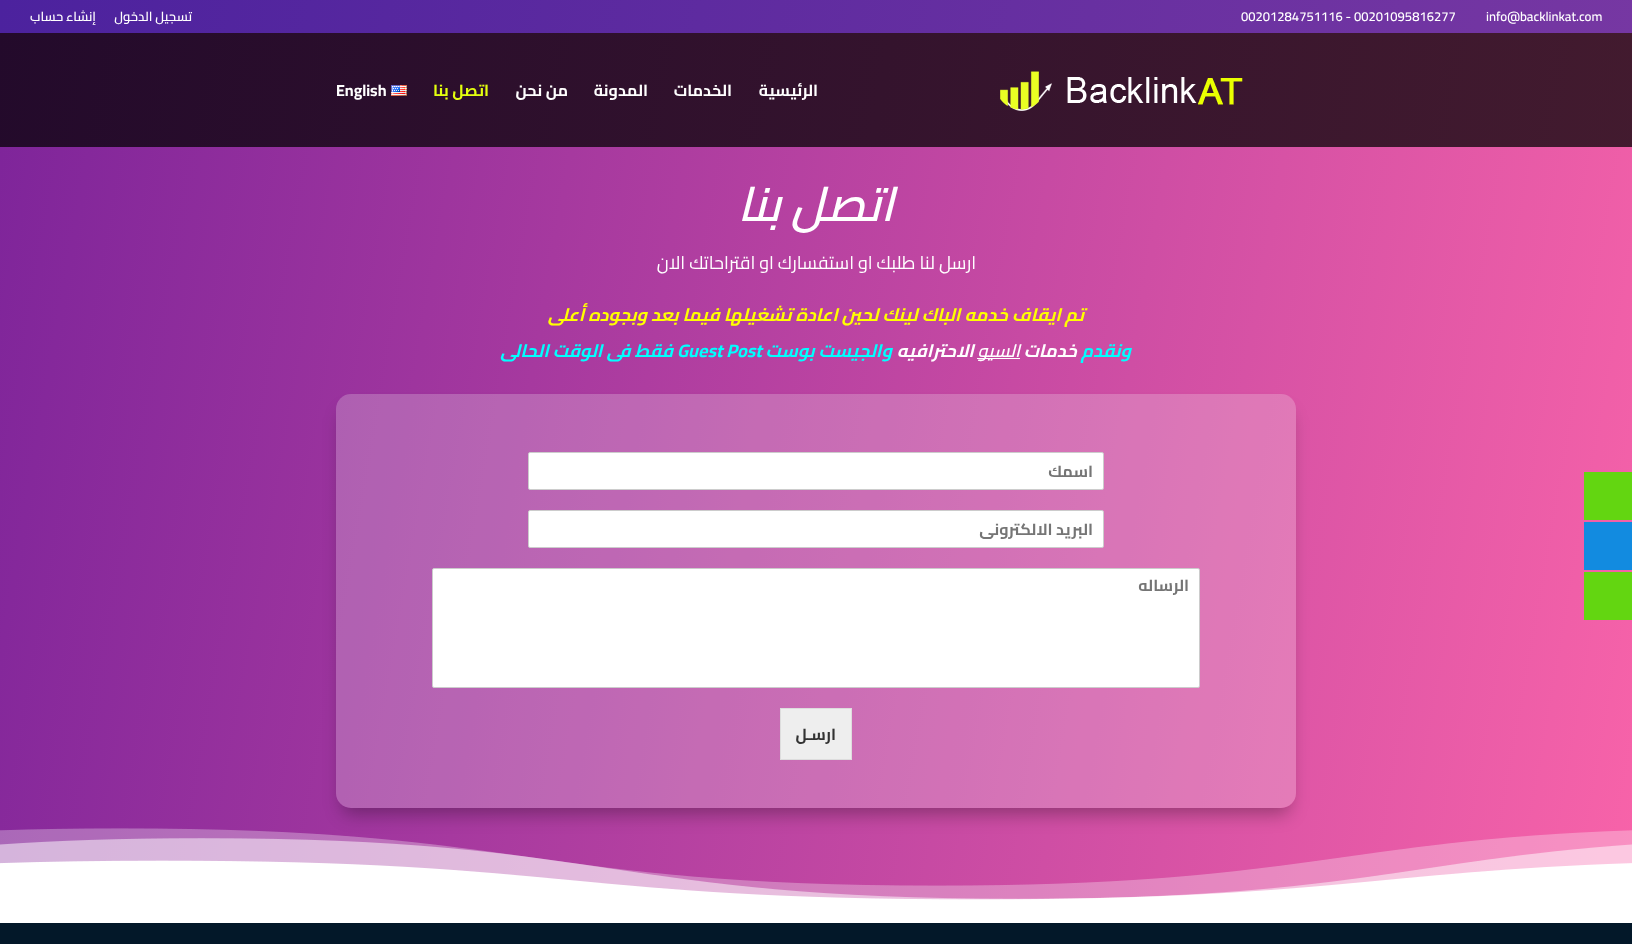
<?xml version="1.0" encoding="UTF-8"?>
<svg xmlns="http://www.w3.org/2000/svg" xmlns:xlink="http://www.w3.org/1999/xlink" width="1632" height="944">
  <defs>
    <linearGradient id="g1" gradientUnits="userSpaceOnUse" x1="-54" y1="308" x2="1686" y2="614"><stop offset="0" stop-color="#7d249a" /><stop offset="1" stop-color="#f863a9" /></linearGradient>
    <linearGradient id="g2" gradientUnits="userSpaceOnUse" x1="-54" y1="308" x2="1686" y2="614"><stop offset="0" stop-color="#230a2b" /><stop offset="1" stop-color="#451c2f" /></linearGradient>
    <linearGradient id="g3" gradientUnits="userSpaceOnUse" x1="-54" y1="308" x2="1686" y2="614"><stop offset="0" stop-color="#4c229e" /><stop offset="1" stop-color="#7a39a3" /></linearGradient>
    <clipPath id="clip1"><path d="M 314 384 h 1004 v 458 h -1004 z m 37 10 h 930 c 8.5 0 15 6.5 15 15 v 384 c 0 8.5 -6.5 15 -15 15 h -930 c -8.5 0 -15 -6.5 -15 -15 v -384 c 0 -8.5 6.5 -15 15 -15 z" clip-rule="evenodd" /></clipPath>
  </defs>
  <rect width="100%" height="100%" fill="#031829" />
  <rect y="147" width="1632" height="753" fill="url(#g1)" />
  <rect x="1584" y="472" width="48" height="48" fill="#63d611" />
  <rect x="1584" y="522" width="48" height="48" fill="#128be0" />
  <rect x="1584" y="572" width="48" height="48" fill="#63d611" />
  <rect y="33" width="1632" height="114" fill="url(#g2)" />
  <image x="1000" y="71" width="243" height="40" xlink:href="image1.png" />
  <image x="391" y="85" width="16" height="11" xlink:href="image2.png" />
  <rect width="1632" height="33" fill="url(#g3)" />
  <rect x="977" y="358" width="43" height="1" fill="#ffffff" />
  <image x="0" y="828" width="1632" height="95" xlink:href="image3.png" />
  <g clip-path="url(#clip1)">
    <rect x="342" y="412" width="948" height="402" rx="9" fill="#000000" fill-opacity="0.3" filter="blur(9px)" />
  </g>
  <rect x="336" y="394" width="960" height="414" rx="15" fill="#f7f7f7" fill-opacity="0.23" />
  <rect x="528.5" y="452.5" width="575" height="37" rx="1.5" fill="#ffffff" stroke="#cccccc" />
  <rect x="528.5" y="510.5" width="575" height="37" rx="1.5" fill="#ffffff" stroke="#cccccc" />
  <rect x="432.5" y="568.5" width="767" height="119" rx="1.5" fill="#ffffff" stroke="#cccccc" />
  <rect x="780.5" y="708.5" width="71" height="51" fill="#eeeeee" stroke="#dddddd" />
  <text x="1486" y="21" style="font-family: Cairo; font-size: 13px; font-weight: 600; fill: #ffffff">info@backlinkat.com</text>
  <text x="1241" y="21" style="font-family: Cairo; font-size: 13px; font-weight: 600; fill: #ffffff">00201284751116 - 00201095816277</text>
  <text x="192" y="21" style="font-family: Cairo; font-size: 13px; font-weight: 600; direction: rtl; fill: #ffffff">تسجيل الدخول</text>
  <text x="96" y="21" style="font-family: Cairo; font-size: 13px; font-weight: 600; direction: rtl; fill: #ffffff">إنشاء حساب</text>
  <text x="818" y="96" style="font-family: Cairo; font-size: 16px; font-weight: bold; direction: rtl; fill: #ffffff">الرئيسية</text>
  <text x="732" y="96" style="font-family: Cairo; font-size: 16px; font-weight: bold; direction: rtl; fill: #ffffff">الخدمات</text>
  <text x="648" y="96" style="font-family: Cairo; font-size: 16px; font-weight: bold; direction: rtl; fill: #ffffff">المدونة</text>
  <text x="568" y="96" style="font-family: Cairo; font-size: 16px; font-weight: bold; direction: rtl; fill: #ffffff">من نحن</text>
  <text x="489" y="96" style="font-family: Cairo; font-size: 16px; font-weight: bold; direction: rtl; fill: #e3ff0f">اتصل بنا</text>
  <text x="336" y="96" style="font-family: Cairo; font-size: 16px; font-weight: bold; fill: #ffffff">English</text>
  <text x="894" y="221" style="font-family: Cairo; font-size: 48px; font-weight: 600; font-style: italic; direction: rtl; fill: #ffffff">اتصل بنا</text>
  <text x="976" y="269" style="font-family: Cairo; font-size: 18px; direction: rtl; fill: #ffffff">ارسل لنا طلبك او استفسارك او اقتراحاتك الان</text>
  <text x="1084" y="321" style="font-family: Cairo; font-size: 18px; font-weight: bold; font-style: italic; direction: rtl; fill: #ffff00">تم ايقاف خدمه الباك لينك لحين اعادة تشغيلها فيما بعد وبجوده أعلى</text>
  <text x="1131" y="357" style="font-family: Cairo; font-size: 18px; font-weight: bold; font-style: italic; direction: rtl; fill: #00ffff">ونقدم</text>
  <text x="1077" y="357" style="font-family: Cairo; font-size: 18px; font-weight: bold; font-style: italic; direction: rtl; fill: #ffffff">خدمات</text>
  <text x="1020" y="357" style="font-family: Cairo; font-size: 18px; font-weight: 600; font-style: italic; direction: rtl; fill: #ffffff">السيو</text>
  <text x="974" y="357" style="font-family: Cairo; font-size: 18px; font-weight: bold; font-style: italic; direction: rtl; fill: #ffffff">الاحترافيه</text>
  <text x="892" y="357" style="font-family: Cairo; font-size: 18px; font-weight: bold; font-style: italic; direction: rtl; fill: #00ffff">والجيست بوست</text>
  <text x="677" y="357" style="font-family: Cairo; font-size: 18px; font-weight: bold; font-style: italic; fill: #00ffff">Guest Post</text>
  <text x="673" y="357" style="font-family: Cairo; font-size: 18px; font-weight: bold; font-style: italic; direction: rtl; fill: #00ffff">فقط فى الوقت الحالى</text>
  <text x="1093" y="477" style="font-family: Cairo; font-size: 16px; font-weight: bold; direction: rtl; fill: #757575">اسمك</text>
  <text x="1093" y="535" style="font-family: Cairo; font-size: 16px; font-weight: bold; direction: rtl; fill: #757575">البريد الالكترونى</text>
  <text x="1189" y="591" style="font-family: Cairo; font-size: 16px; font-weight: bold; direction: rtl; fill: #757575">الرساله</text>
  <text x="836" y="740" style="font-family: Cairo; font-size: 16px; font-weight: bold; direction: rtl; fill: #333333">ارسـل</text>
</svg>
